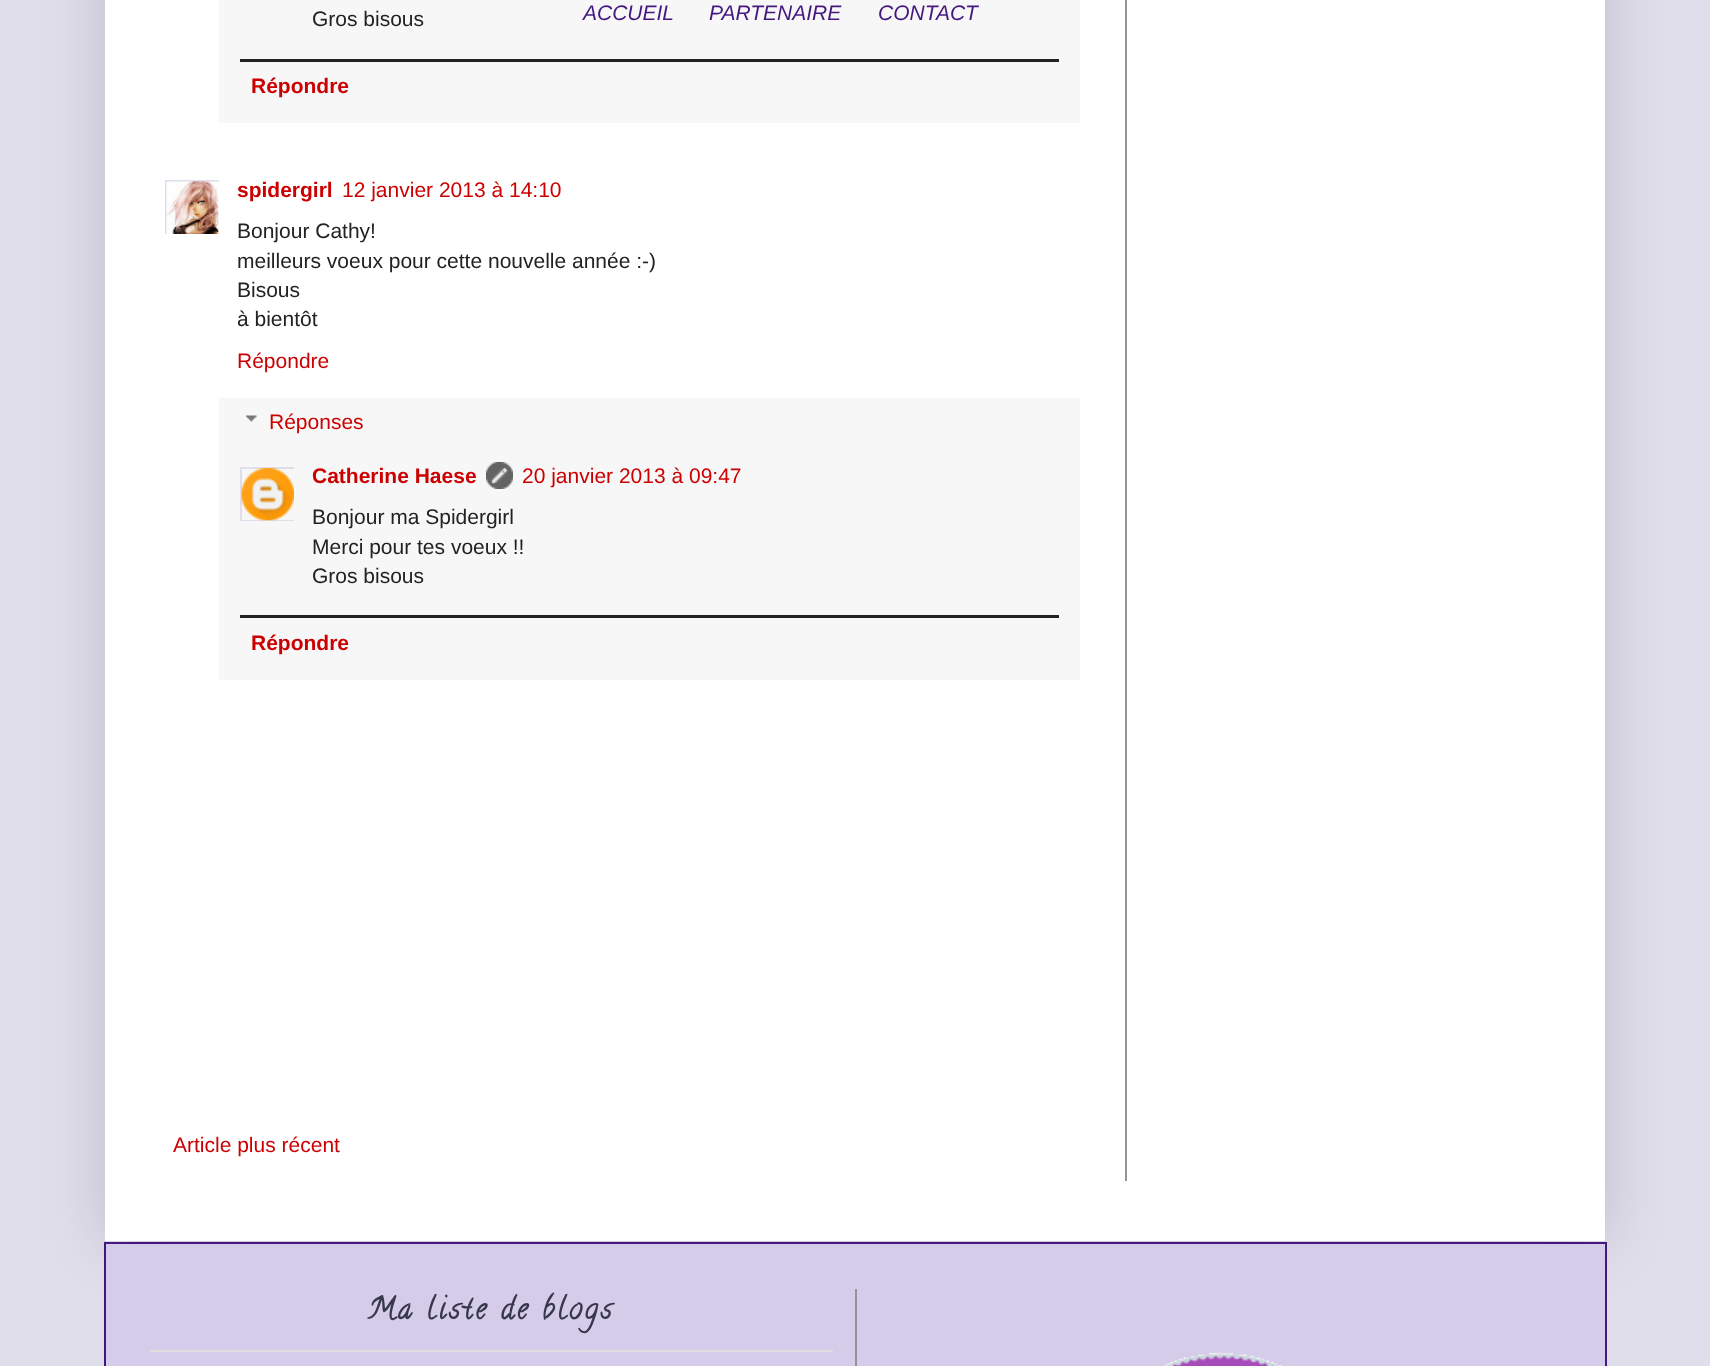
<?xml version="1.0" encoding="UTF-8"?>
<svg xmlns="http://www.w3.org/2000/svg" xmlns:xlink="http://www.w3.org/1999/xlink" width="1710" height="1366">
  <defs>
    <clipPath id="clip1"><rect x="165" y="180" width="54" height="54" /></clipPath>
    <clipPath id="clip2"><rect x="240" y="467" width="54" height="54" /></clipPath>
  </defs>
  <rect width="100%" height="100%" fill="#e0deeb" />
  <rect x="105" y="-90" width="1500" height="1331" fill="#000000" fill-opacity="0.15" filter="blur(30px)" />
  <rect x="105" width="1500" height="1241" fill="#ffffff" />
  <rect x="219" width="861" height="123" fill="#f7f7f7" />
  <rect x="240" y="59" width="819" height="3" fill="#222222" />
  <g clip-path="url(#clip1)">
    <rect x="166" y="181" width="55" height="55" fill="none" stroke="#e0deeb" stroke-width="2" />
  </g>
  <image x="166" y="181" width="53" height="53" xlink:href="image1.png" />
  <rect x="219" y="398" width="861" height="282" fill="#f7f7f7" />
  <image x="246" y="415" width="11" height="7" xlink:href="image2.png" />
  <g clip-path="url(#clip2)">
    <rect x="241" y="468" width="54" height="53" fill="none" stroke="#e0deeb" stroke-width="2" />
  </g>
  <image x="241" y="468" width="53" height="53" xlink:href="image3.png" />
  <image x="486" y="462" width="27" height="27" xlink:href="image4.png" />
  <rect x="240" y="615" width="819" height="3" fill="#222222" />
  <rect x="1125" width="2" height="1181" fill="#949494" />
  <rect x="105" y="1243" width="1501" height="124" fill="#d5cce9" stroke="#44187f" stroke-width="2" />
  <rect x="150" y="1350" width="683" height="2" fill="#dddddd" />
  <rect x="855" y="1289" width="2" height="77" fill="#949494" />
  <image x="1163" y="1352" width="119" height="14" xlink:href="image5.png" />
  <text x="312" y="26" style="font-family: Liberation Sans; font-size: 21px; fill: #222222">Gros bisous</text>
  <text x="251" y="93" style="font-family: Liberation Sans; font-size: 21px; font-weight: bold; fill: #cc0000">Répondre</text>
  <text x="237" y="197" style="font-family: Liberation Sans; font-size: 21px; font-weight: bold; fill: #cc0000">spidergirl</text>
  <text x="342" y="197" style="font-family: Liberation Sans; font-size: 21px; fill: #cc0000">12 janvier 2013 à 14:10</text>
  <text x="237" y="238" style="font-family: Liberation Sans; font-size: 21px; fill: #222222">Bonjour Cathy!</text>
  <text x="237" y="268" style="font-family: Liberation Sans; font-size: 21px; fill: #222222">meilleurs voeux pour cette nouvelle année :-)</text>
  <text x="237" y="297" style="font-family: Liberation Sans; font-size: 21px; fill: #222222">Bisous</text>
  <text x="237" y="326" style="font-family: Liberation Sans; font-size: 21px; fill: #222222">à bientôt</text>
  <text x="237" y="368" style="font-family: Liberation Sans; font-size: 21px; fill: #cc0000">Répondre</text>
  <text x="269" y="429" style="font-family: Liberation Sans; font-size: 21px; fill: #cc0000">Réponses</text>
  <text x="312" y="483" style="font-family: Liberation Sans; font-size: 21px; font-weight: bold; fill: #cc0000">Catherine Haese</text>
  <text x="522" y="483" style="font-family: Liberation Sans; font-size: 21px; fill: #cc0000">20 janvier 2013 à 09:47</text>
  <text x="312" y="524" style="font-family: Liberation Sans; font-size: 21px; fill: #222222">Bonjour ma Spidergirl</text>
  <text x="312" y="554" style="font-family: Liberation Sans; font-size: 21px; fill: #222222">Merci pour tes voeux !!</text>
  <text x="312" y="583" style="font-family: Liberation Sans; font-size: 21px; fill: #222222">Gros bisous</text>
  <text x="251" y="650" style="font-family: Liberation Sans; font-size: 21px; font-weight: bold; fill: #cc0000">Répondre</text>
  <text x="173" y="1152" style="font-family: Liberation Sans; font-size: 21px; fill: #cc0000">Article plus récent</text>
  <text x="583" y="20" style="font-family: Liberation Sans; font-size: 21px; font-style: italic; fill: #44187f">ACCUEIL</text>
  <text x="709" y="20" style="font-family: Liberation Sans; font-size: 21px; font-style: italic; fill: #44187f">PARTENAIRE</text>
  <text x="878" y="20" style="font-family: Liberation Sans; font-size: 21px; font-style: italic; fill: #44187f">CONTACT</text>
  <text x="367" y="1318" style="font-family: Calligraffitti; font-size: 30px; font-weight: bold; letter-spacing: 3px; fill: #38384c">Ma liste de blogs</text>
</svg>
